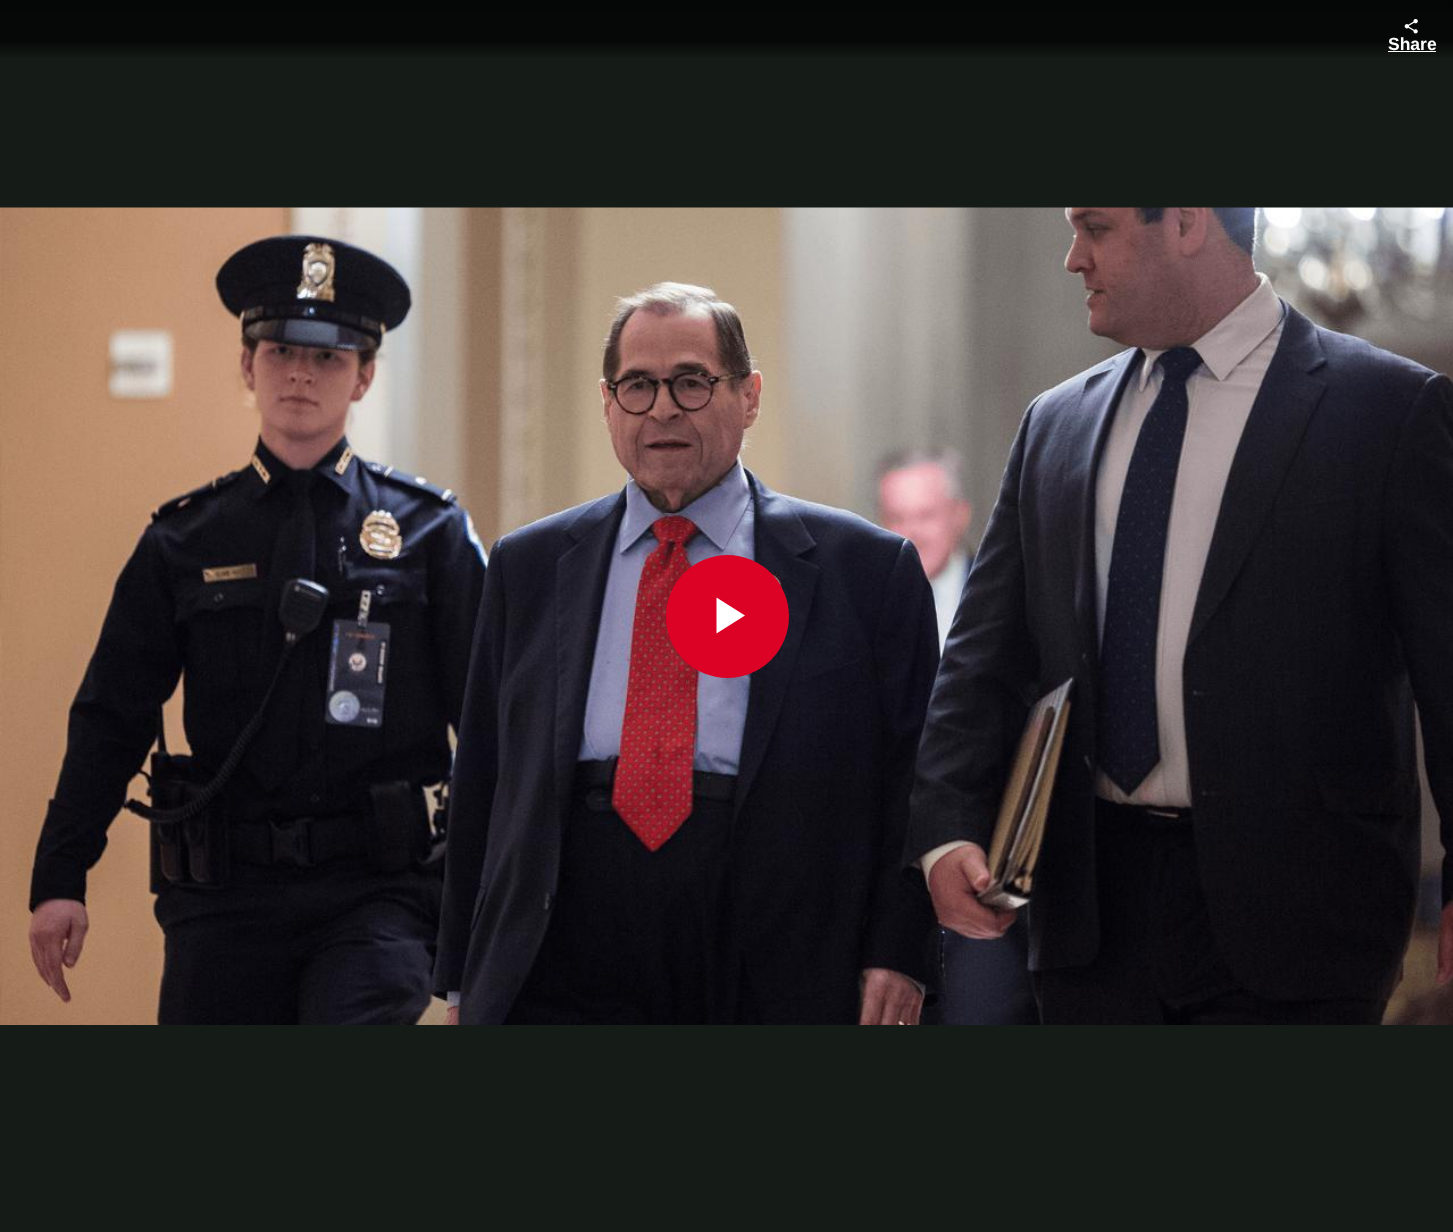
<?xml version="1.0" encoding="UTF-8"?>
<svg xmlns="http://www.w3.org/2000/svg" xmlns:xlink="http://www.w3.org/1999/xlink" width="1453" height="1232">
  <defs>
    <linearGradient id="g1" gradientUnits="userSpaceOnUse" x1="727" y1="0" x2="727" y2="59"><stop offset="0" stop-color="#040505" /><stop offset="0.3" stop-color="#060807" /><stop offset="0.7" stop-color="#060807" /><stop offset="1" stop-color="#151b17" /></linearGradient>
  </defs>
  <rect width="100%" height="100%" fill="#151b17" />
  <rect width="1453" height="57" fill="url(#g1)" />
  <image x="1404" y="19" width="14" height="15" xlink:href="image1.png" />
  <rect x="1388" y="51" width="48" height="1" fill="#ffffff" />
  <image x="0" y="207" width="1453" height="818" xlink:href="image2.png" />
  <circle cx="727.5" cy="616.5" r="61.5" fill="#db0226" />
  <path d="M 716.5 597.5 v 36 l 28.5 -18 z" fill="#ffffff" />
  <text x="1388" y="50" style="font-family: Liberation Sans; font-size: 17.5px; font-weight: bold; fill: #ffffff">Share</text>
</svg>
